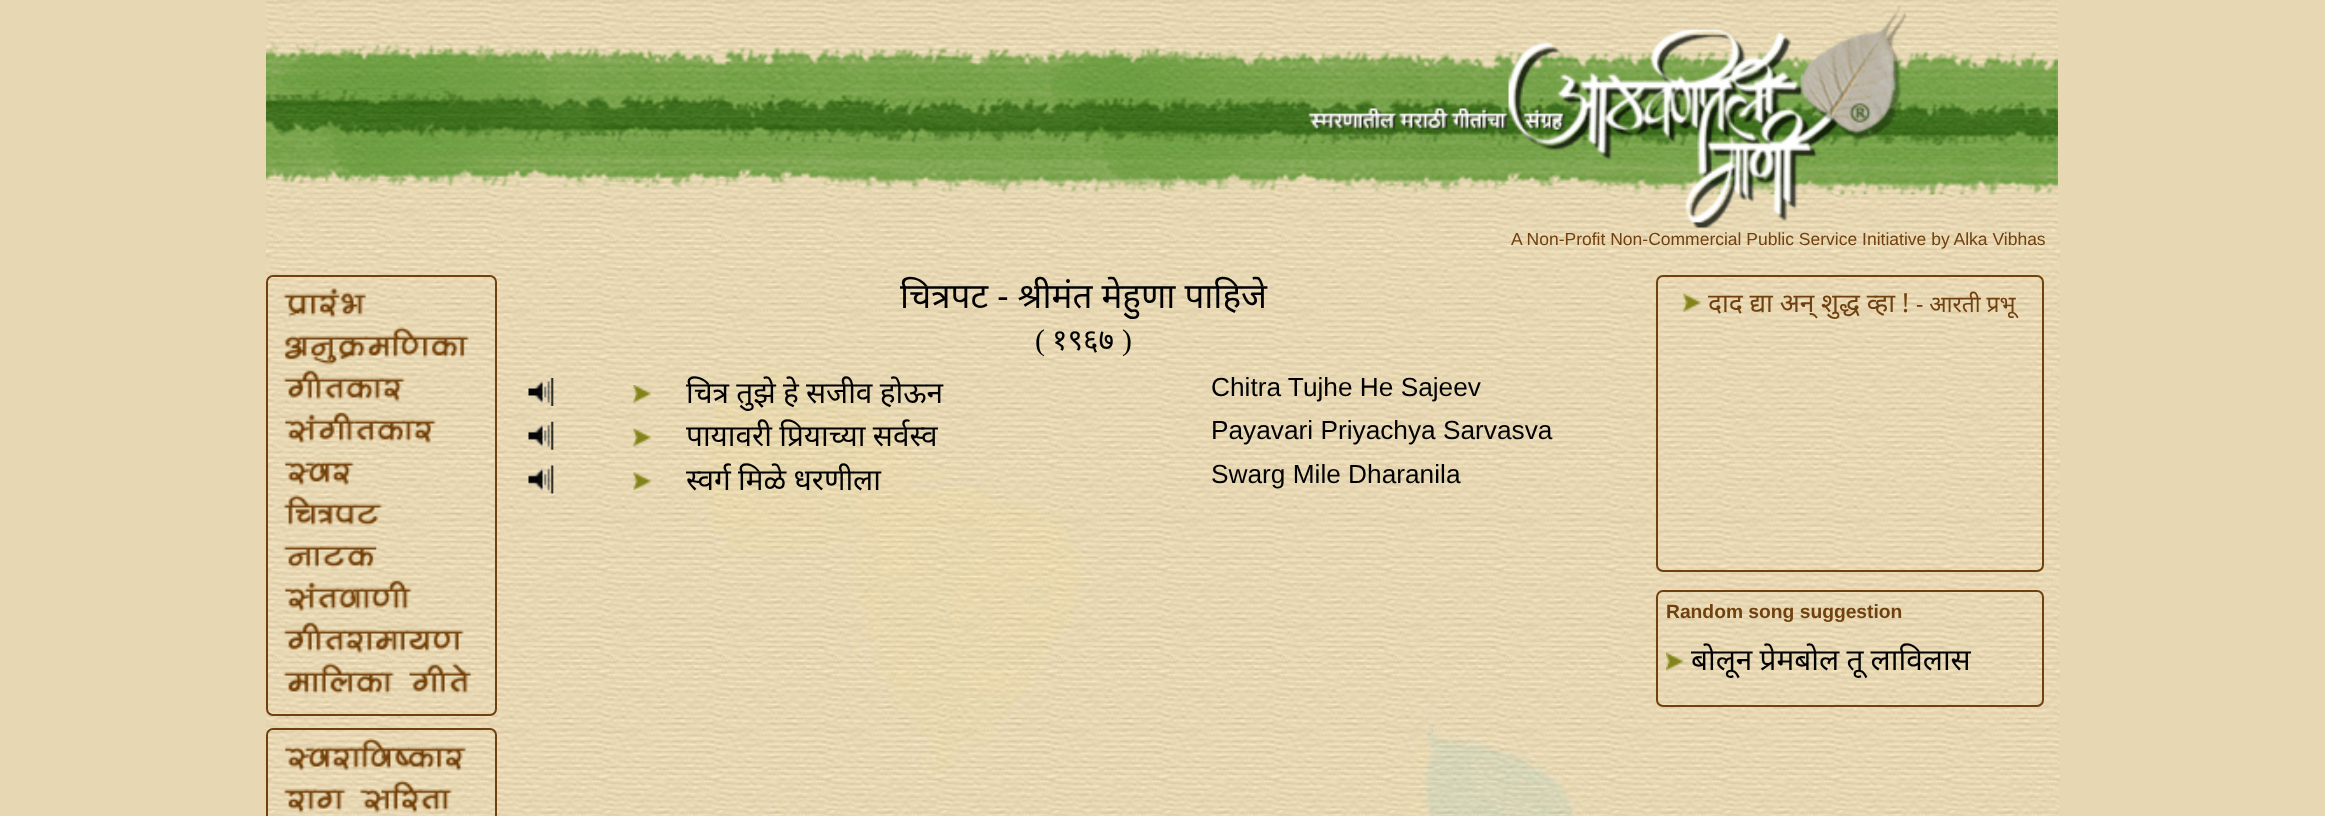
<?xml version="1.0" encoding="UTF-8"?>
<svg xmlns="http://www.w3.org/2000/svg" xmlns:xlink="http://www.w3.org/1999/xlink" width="2325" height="816">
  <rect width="100%" height="100%" fill="#e7d8b3" />
  <image x="266" y="0" width="1792" height="230" xlink:href="image1.png" />
  <image x="266" y="229" width="1794" height="587" xlink:href="image2.png" />
  <rect x="267" y="276" width="229" height="439" rx="6" fill="none" stroke="#70400e" stroke-width="2" />
  <image x="283" y="288" width="83" height="30" xlink:href="image3.png" />
  <image x="284" y="327" width="185" height="38" xlink:href="image4.png" />
  <image x="283" y="370" width="122" height="32" xlink:href="image5.png" />
  <image x="284" y="412" width="152" height="32" xlink:href="image6.png" />
  <image x="284" y="461" width="70" height="25" xlink:href="image7.png" />
  <image x="283" y="495" width="99" height="31" xlink:href="image8.png" />
  <image x="283" y="545" width="94" height="23" xlink:href="image9.png" />
  <image x="284" y="580" width="128" height="32" xlink:href="image10.png" />
  <image x="283" y="622" width="181" height="32" xlink:href="image11.png" />
  <image x="283" y="663" width="188" height="31" xlink:href="image12.png" />
  <rect x="267" y="729" width="229" height="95" rx="6" fill="none" stroke="#70400e" stroke-width="2" />
  <image x="284" y="738" width="182" height="33" xlink:href="image13.png" />
  <image x="283" y="780" width="169" height="33" xlink:href="image14.png" />
  <image x="528" y="378" width="26" height="28" xlink:href="image15.png" />
  <image x="633" y="385" width="18" height="18" xlink:href="image16.png" />
  <image x="528" y="421" width="26" height="29" xlink:href="image17.png" />
  <image x="633" y="428" width="18" height="19" xlink:href="image18.png" />
  <image x="528" y="465" width="26" height="29" xlink:href="image19.png" />
  <image x="633" y="472" width="18" height="18" xlink:href="image20.png" />
  <rect x="1657" y="276" width="386" height="295" rx="6" fill="none" stroke="#70400e" stroke-width="2" />
  <image x="1683" y="294" width="18" height="18" xlink:href="image21.png" />
  <rect x="1657" y="591" width="386" height="115" rx="6" fill="none" stroke="#70400e" stroke-width="2" />
  <image x="1666" y="652" width="18" height="19" xlink:href="image22.png" />
  <text x="1511" y="245" style="font-family: Liberation Sans; font-size: 17.5px; fill: #70400e">A Non-Profit Non-Commercial Public Service Initiative by Alka Vibhas</text>
  <text x="900" y="308" style="font-family: Noto Sans; font-size: 35px; fill: #000000">चित्रपट - श्रीमंत मेहुणा पाहिजे</text>
  <text x="1035" y="350" style="font-family: Liberation Serif; font-size: 29.75px; fill: #000000">(</text>
  <text x="1052" y="350" style="font-family: Noto Sans; font-size: 29.75px; fill: #000000">१९६७</text>
  <text x="1122" y="350" style="font-family: Liberation Serif; font-size: 29.75px; fill: #000000">)</text>
  <text x="686" y="403" word-spacing="-0.5" style="font-family: Noto Sans; font-size: 29.75px; fill: #000000">चित्र तुझे हे सजीव होऊन</text>
  <text x="1211" y="396" style="font-family: Liberation Sans; font-size: 26.25px; fill: #000000">Chitra Tujhe He Sajeev</text>
  <text x="686" y="446" word-spacing="-0.5" style="font-family: Noto Sans; font-size: 29.75px; fill: #000000">पायावरी प्रियाच्या सर्वस्व</text>
  <text x="1211" y="439" style="font-family: Liberation Sans; font-size: 26.25px; fill: #000000">Payavari Priyachya Sarvasva</text>
  <text x="686" y="490" word-spacing="-0.5" style="font-family: Noto Sans; font-size: 29.75px; fill: #000000">स्वर्ग मिळे धरणीला</text>
  <text x="1211" y="483" style="font-family: Liberation Sans; font-size: 26.25px; fill: #000000">Swarg Mile Dharanila</text>
  <text x="1708" y="312" style="font-family: Noto Sans; font-size: 26.25px; fill: #70400e">दाद द्या अन्‌ शुद्ध व्हा !</text>
  <text x="1916" y="312" style="font-family: Noto Sans; font-size: 22.75px; fill: #70400e">- आरती प्रभू</text>
  <text x="1666" y="618" style="font-family: Liberation Sans; font-size: 19.25px; font-weight: bold; fill: #70400e">Random song suggestion</text>
  <text x="1691" y="670" word-spacing="-0.5" style="font-family: Noto Sans; font-size: 29.75px; fill: #000000">बोलून प्रेमबोल तू लाविलास</text>
</svg>
